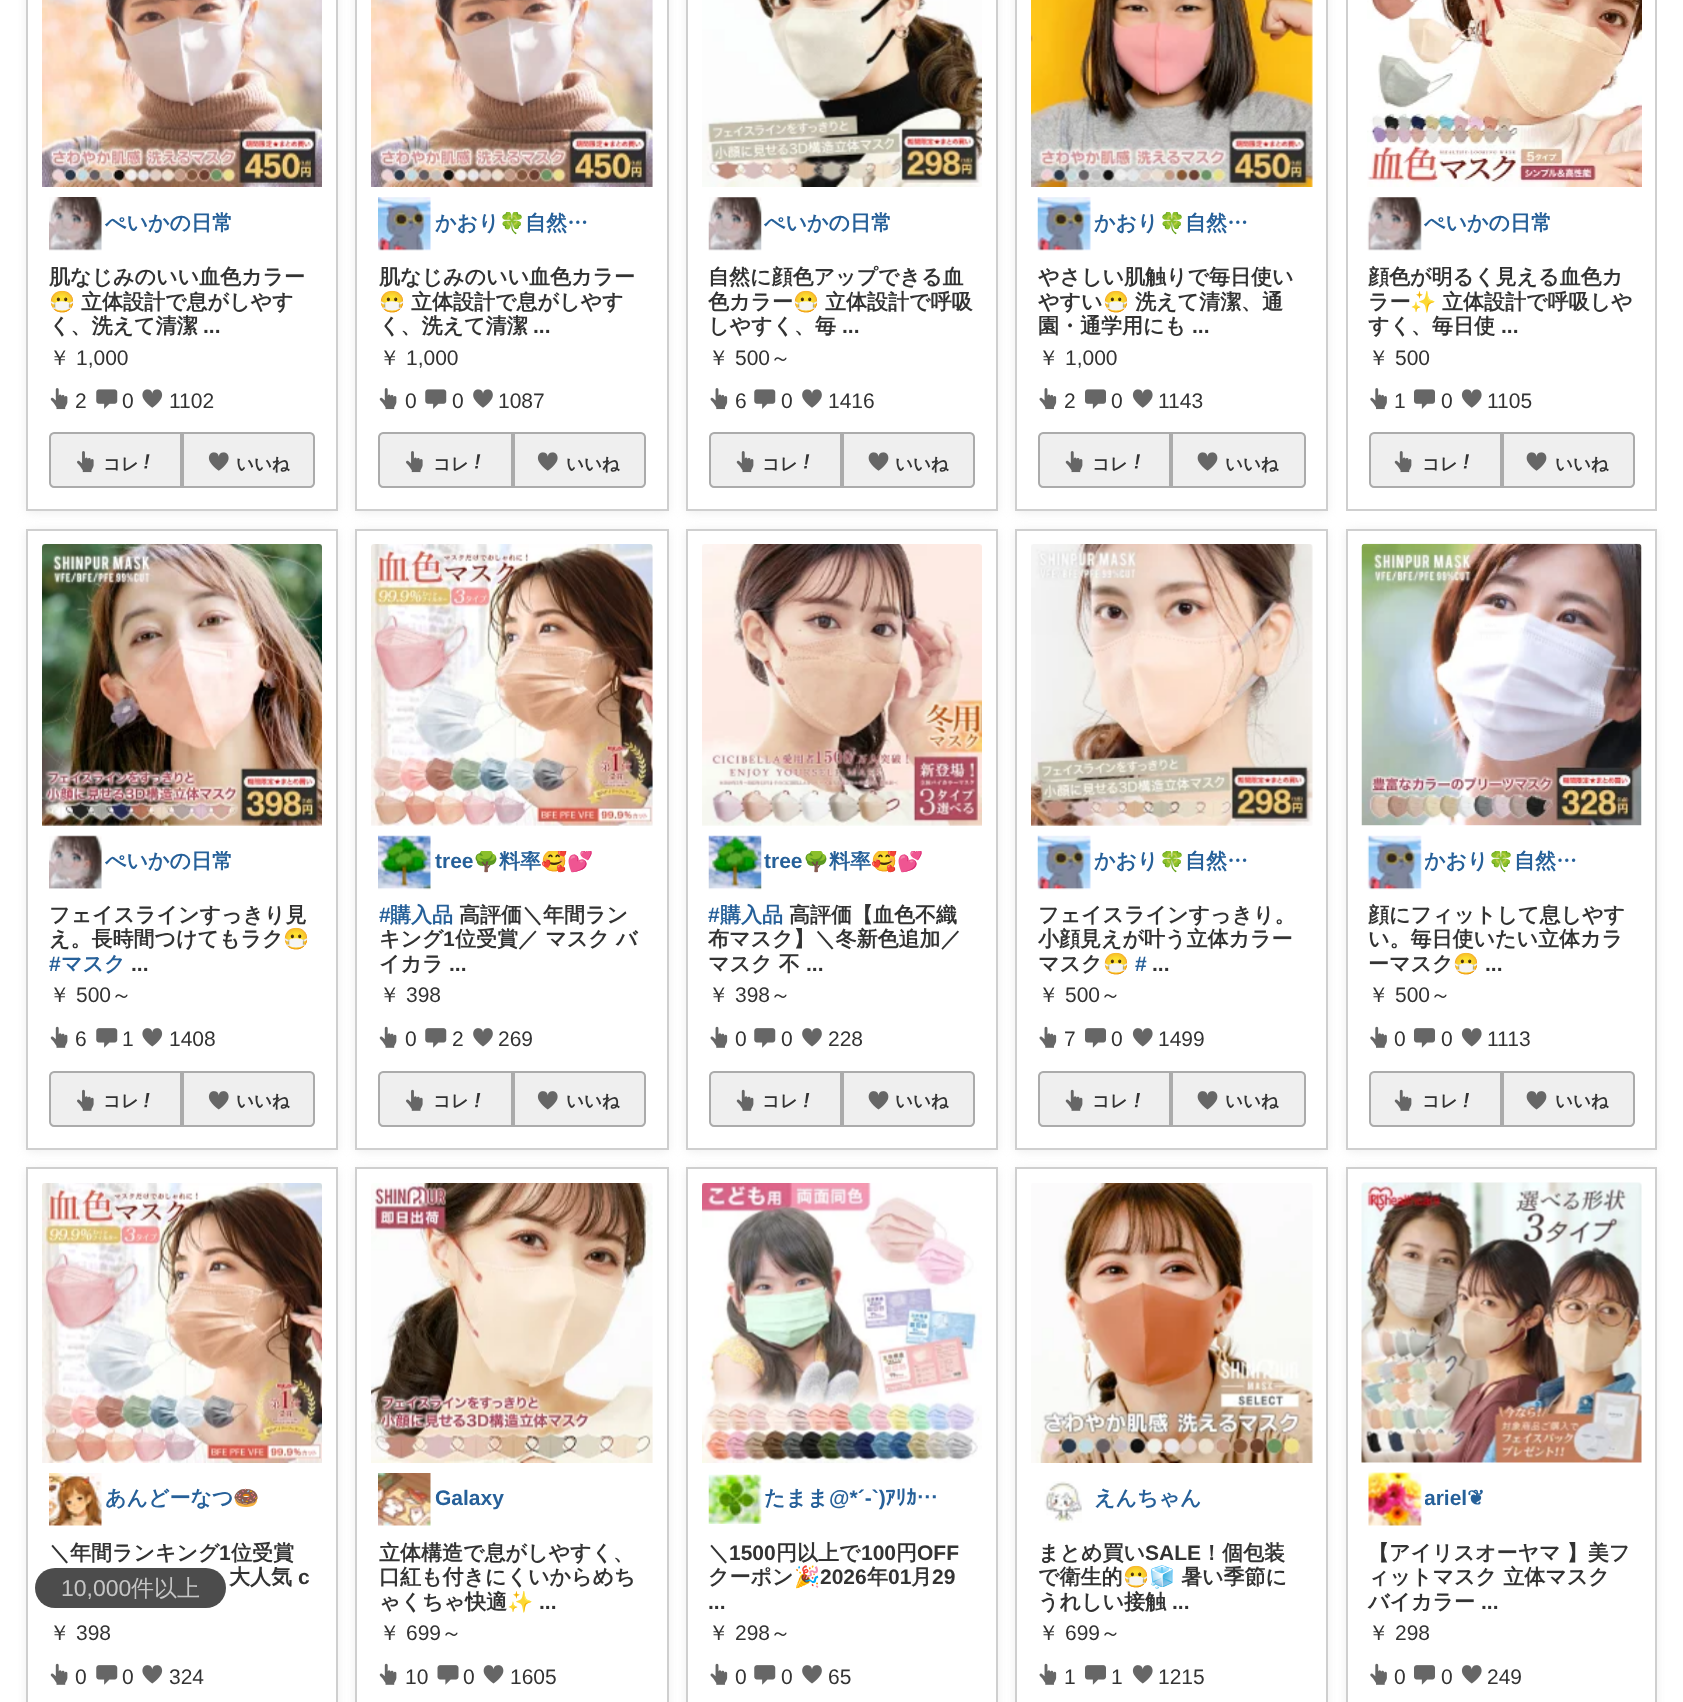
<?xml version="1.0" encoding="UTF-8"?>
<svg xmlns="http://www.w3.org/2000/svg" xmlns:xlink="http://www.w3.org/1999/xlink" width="1683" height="1702">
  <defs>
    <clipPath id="clip1"><rect x="105" y="851" width="175" height="22" /></clipPath>
    <clipPath id="clip2"><rect x="105" y="1488" width="175" height="22" /></clipPath>
    <clipPath id="clip3"><rect x="434" y="212" width="175" height="23" /></clipPath>
    <clipPath id="clip4"><rect x="434" y="851" width="175" height="22" /></clipPath>
    <clipPath id="clip5"><rect x="765" y="851" width="175" height="22" /></clipPath>
    <clipPath id="clip6"><rect x="1094" y="212" width="175" height="23" /></clipPath>
    <clipPath id="clip7"><rect x="1094" y="851" width="175" height="22" /></clipPath>
    <clipPath id="clip8"><rect x="1425" y="851" width="175" height="22" /></clipPath>
    <clipPath id="clip9"><rect x="1425" y="1488" width="175" height="22" /></clipPath>
  </defs>
  <rect width="100%" height="100%" fill="#ffffff" />
  <rect x="26" y="-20" width="312" height="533" rx="5" fill="#efefef" filter="blur(5px)" />
  <rect x="27" y="-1" width="310" height="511" fill="#ffffff" stroke="#cfcfcf" stroke-width="2" />
  <image x="42" y="0" width="280" height="187" xlink:href="image1.png" />
  <image x="49" y="197" width="53" height="54" xlink:href="image2.png" />
  <image x="50" y="388" width="18" height="22" xlink:href="image3.png" />
  <image x="96" y="389" width="22" height="20" xlink:href="image4.png" />
  <image x="142" y="389" width="21" height="19" xlink:href="image5.png" />
  <path d="M 54 433 h 127 v 54 h -127 c -2 0 -4 -2 -4 -4 v -46 c 0 -2 2 -4 4 -4 z" fill="#efefef" stroke="#ababab" stroke-width="2" />
  <image x="77" y="451" width="17" height="22" xlink:href="image6.png" />
  <image x="144" y="454" width="6" height="15" xlink:href="image7.png" />
  <path d="M 183 433 h 127 c 2 0 4 2 4 4 v 46 c 0 2 -2 4 -4 4 h -127 z" fill="#efefef" stroke="#ababab" stroke-width="2" />
  <image x="208" y="452" width="21" height="19" xlink:href="image8.png" />
  <rect x="26" y="530" width="312" height="622" rx="5" fill="#efefef" filter="blur(5px)" />
  <rect x="27" y="530" width="310" height="619" fill="#ffffff" stroke="#cfcfcf" stroke-width="2" />
  <image x="42" y="544" width="280" height="282" xlink:href="image9.png" />
  <image x="49" y="835" width="53" height="54" xlink:href="image10.png" />
  <image x="50" y="1026" width="18" height="22" xlink:href="image11.png" />
  <image x="96" y="1028" width="22" height="20" xlink:href="image12.png" />
  <image x="142" y="1028" width="21" height="19" xlink:href="image13.png" />
  <path d="M 54 1072 h 127 v 54 h -127 c -2 0 -4 -2 -4 -4 v -46 c 0 -2 2 -4 4 -4 z" fill="#efefef" stroke="#ababab" stroke-width="2" />
  <image x="77" y="1089" width="17" height="22" xlink:href="image14.png" />
  <image x="144" y="1093" width="6" height="15" xlink:href="image15.png" />
  <path d="M 183 1072 h 127 c 2 0 4 2 4 4 v 46 c 0 2 -2 4 -4 4 h -127 z" fill="#efefef" stroke="#ababab" stroke-width="2" />
  <image x="208" y="1091" width="21" height="19" xlink:href="image16.png" />
  <rect x="26" y="1169" width="312" height="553" rx="5" fill="#efefef" filter="blur(5px)" />
  <rect x="27" y="1168" width="310" height="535" fill="#ffffff" stroke="#cfcfcf" stroke-width="2" />
  <image x="42" y="1183" width="280" height="280" xlink:href="image17.png" />
  <image x="49" y="1473" width="53" height="53" xlink:href="image18.png" />
  <image x="50" y="1663" width="18" height="22" xlink:href="image11.png" />
  <image x="96" y="1665" width="22" height="20" xlink:href="image12.png" />
  <image x="142" y="1665" width="21" height="19" xlink:href="image13.png" />
  <rect x="355" y="-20" width="314" height="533" rx="5" fill="#efefef" filter="blur(5px)" />
  <rect x="356" y="-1" width="312" height="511" fill="#ffffff" stroke="#cfcfcf" stroke-width="2" />
  <image x="371" y="0" width="282" height="187" xlink:href="image19.png" />
  <image x="378" y="197" width="53" height="54" xlink:href="image20.png" />
  <image x="379" y="388" width="18" height="22" xlink:href="image3.png" />
  <image x="425" y="389" width="22" height="20" xlink:href="image4.png" />
  <image x="473" y="389" width="20" height="19" xlink:href="image21.png" />
  <path d="M 383 433 h 129 v 54 h -129 c -2 0 -4 -2 -4 -4 v -46 c 0 -2 2 -4 4 -4 z" fill="#efefef" stroke="#ababab" stroke-width="2" />
  <image x="406" y="451" width="17" height="22" xlink:href="image6.png" />
  <image x="475" y="454" width="6" height="15" xlink:href="image22.png" />
  <path d="M 514 433 h 127 c 2 0 4 2 4 4 v 46 c 0 2 -2 4 -4 4 h -127 z" fill="#efefef" stroke="#ababab" stroke-width="2" />
  <image x="537" y="452" width="21" height="19" xlink:href="image8.png" />
  <rect x="355" y="530" width="314" height="622" rx="5" fill="#efefef" filter="blur(5px)" />
  <rect x="356" y="530" width="312" height="619" fill="#ffffff" stroke="#cfcfcf" stroke-width="2" />
  <image x="371" y="544" width="282" height="282" xlink:href="image23.png" />
  <image x="378" y="835" width="53" height="55" xlink:href="image24.png" />
  <image x="379" y="1026" width="18" height="22" xlink:href="image11.png" />
  <image x="425" y="1028" width="22" height="20" xlink:href="image12.png" />
  <image x="473" y="1028" width="20" height="19" xlink:href="image25.png" />
  <path d="M 383 1072 h 129 v 54 h -129 c -2 0 -4 -2 -4 -4 v -46 c 0 -2 2 -4 4 -4 z" fill="#efefef" stroke="#ababab" stroke-width="2" />
  <image x="406" y="1089" width="17" height="22" xlink:href="image14.png" />
  <image x="475" y="1093" width="6" height="15" xlink:href="image26.png" />
  <path d="M 514 1072 h 127 c 2 0 4 2 4 4 v 46 c 0 2 -2 4 -4 4 h -127 z" fill="#efefef" stroke="#ababab" stroke-width="2" />
  <image x="537" y="1091" width="21" height="19" xlink:href="image16.png" />
  <rect x="355" y="1169" width="314" height="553" rx="5" fill="#efefef" filter="blur(5px)" />
  <rect x="356" y="1168" width="312" height="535" fill="#ffffff" stroke="#cfcfcf" stroke-width="2" />
  <image x="371" y="1183" width="282" height="280" xlink:href="image27.png" />
  <image x="378" y="1473" width="53" height="53" xlink:href="image28.png" />
  <image x="379" y="1663" width="18" height="22" xlink:href="image11.png" />
  <image x="437" y="1665" width="22" height="20" xlink:href="image29.png" />
  <image x="483" y="1665" width="21" height="19" xlink:href="image30.png" />
  <rect x="686" y="-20" width="312" height="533" rx="5" fill="#efefef" filter="blur(5px)" />
  <rect x="687" y="-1" width="310" height="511" fill="#ffffff" stroke="#cfcfcf" stroke-width="2" />
  <image x="702" y="0" width="280" height="187" xlink:href="image31.png" />
  <image x="708" y="197" width="54" height="54" xlink:href="image32.png" />
  <image x="710" y="388" width="18" height="22" xlink:href="image33.png" />
  <image x="754" y="389" width="22" height="20" xlink:href="image4.png" />
  <image x="802" y="389" width="20" height="19" xlink:href="image21.png" />
  <path d="M 714 433 h 127 v 54 h -127 c -2 0 -4 -2 -4 -4 v -46 c 0 -2 2 -4 4 -4 z" fill="#efefef" stroke="#ababab" stroke-width="2" />
  <image x="736" y="451" width="18" height="22" xlink:href="image34.png" />
  <image x="804" y="454" width="6" height="15" xlink:href="image22.png" />
  <path d="M 843 433 h 127 c 2 0 4 2 4 4 v 46 c 0 2 -2 4 -4 4 h -127 z" fill="#efefef" stroke="#ababab" stroke-width="2" />
  <image x="868" y="452" width="21" height="19" xlink:href="image35.png" />
  <rect x="686" y="530" width="312" height="622" rx="5" fill="#efefef" filter="blur(5px)" />
  <rect x="687" y="530" width="310" height="619" fill="#ffffff" stroke="#cfcfcf" stroke-width="2" />
  <image x="702" y="544" width="280" height="282" xlink:href="image36.png" />
  <image x="708" y="835" width="54" height="55" xlink:href="image37.png" />
  <image x="710" y="1026" width="18" height="22" xlink:href="image38.png" />
  <image x="754" y="1028" width="22" height="20" xlink:href="image12.png" />
  <image x="802" y="1028" width="20" height="19" xlink:href="image25.png" />
  <path d="M 714 1072 h 127 v 54 h -127 c -2 0 -4 -2 -4 -4 v -46 c 0 -2 2 -4 4 -4 z" fill="#efefef" stroke="#ababab" stroke-width="2" />
  <image x="736" y="1089" width="18" height="22" xlink:href="image39.png" />
  <image x="804" y="1093" width="6" height="15" xlink:href="image26.png" />
  <path d="M 843 1072 h 127 c 2 0 4 2 4 4 v 46 c 0 2 -2 4 -4 4 h -127 z" fill="#efefef" stroke="#ababab" stroke-width="2" />
  <image x="868" y="1091" width="21" height="19" xlink:href="image40.png" />
  <rect x="686" y="1169" width="312" height="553" rx="5" fill="#efefef" filter="blur(5px)" />
  <rect x="687" y="1168" width="310" height="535" fill="#ffffff" stroke="#cfcfcf" stroke-width="2" />
  <image x="702" y="1183" width="280" height="280" xlink:href="image41.png" />
  <image x="708" y="1474" width="54" height="50" xlink:href="image42.png" />
  <image x="710" y="1663" width="18" height="22" xlink:href="image38.png" />
  <image x="754" y="1665" width="22" height="20" xlink:href="image12.png" />
  <image x="802" y="1665" width="20" height="19" xlink:href="image25.png" />
  <rect x="1015" y="-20" width="313" height="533" rx="5" fill="#efefef" filter="blur(5px)" />
  <rect x="1016" y="-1" width="311" height="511" fill="#ffffff" stroke="#cfcfcf" stroke-width="2" />
  <image x="1031" y="0" width="282" height="187" xlink:href="image43.png" />
  <image x="1037" y="197" width="54" height="54" xlink:href="image44.png" />
  <image x="1039" y="388" width="18" height="22" xlink:href="image33.png" />
  <image x="1085" y="389" width="21" height="20" xlink:href="image45.png" />
  <image x="1132" y="389" width="21" height="19" xlink:href="image46.png" />
  <path d="M 1043 433 h 127 v 54 h -127 c -2 0 -4 -2 -4 -4 v -46 c 0 -2 2 -4 4 -4 z" fill="#efefef" stroke="#ababab" stroke-width="2" />
  <image x="1065" y="451" width="18" height="22" xlink:href="image34.png" />
  <image x="1134" y="454" width="6" height="15" xlink:href="image47.png" />
  <path d="M 1172 433 h 129 c 2 0 4 2 4 4 v 46 c 0 2 -2 4 -4 4 h -129 z" fill="#efefef" stroke="#ababab" stroke-width="2" />
  <image x="1197" y="452" width="21" height="19" xlink:href="image35.png" />
  <rect x="1015" y="530" width="313" height="622" rx="5" fill="#efefef" filter="blur(5px)" />
  <rect x="1016" y="530" width="311" height="619" fill="#ffffff" stroke="#cfcfcf" stroke-width="2" />
  <image x="1031" y="544" width="282" height="282" xlink:href="image48.png" />
  <image x="1037" y="835" width="54" height="55" xlink:href="image49.png" />
  <image x="1039" y="1026" width="18" height="22" xlink:href="image38.png" />
  <image x="1085" y="1028" width="21" height="20" xlink:href="image50.png" />
  <image x="1132" y="1028" width="21" height="19" xlink:href="image51.png" />
  <path d="M 1043 1072 h 127 v 54 h -127 c -2 0 -4 -2 -4 -4 v -46 c 0 -2 2 -4 4 -4 z" fill="#efefef" stroke="#ababab" stroke-width="2" />
  <image x="1065" y="1089" width="18" height="22" xlink:href="image39.png" />
  <image x="1134" y="1093" width="6" height="15" xlink:href="image52.png" />
  <path d="M 1172 1072 h 129 c 2 0 4 2 4 4 v 46 c 0 2 -2 4 -4 4 h -129 z" fill="#efefef" stroke="#ababab" stroke-width="2" />
  <image x="1197" y="1091" width="21" height="19" xlink:href="image40.png" />
  <rect x="1015" y="1169" width="313" height="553" rx="5" fill="#efefef" filter="blur(5px)" />
  <rect x="1016" y="1168" width="311" height="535" fill="#ffffff" stroke="#cfcfcf" stroke-width="2" />
  <image x="1031" y="1183" width="282" height="280" xlink:href="image53.png" />
  <image x="1044" y="1481" width="38" height="42" xlink:href="image54.png" />
  <image x="1039" y="1663" width="18" height="22" xlink:href="image38.png" />
  <image x="1085" y="1665" width="21" height="20" xlink:href="image50.png" />
  <image x="1132" y="1665" width="21" height="19" xlink:href="image51.png" />
  <rect x="1347" y="-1" width="309" height="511" fill="none" stroke="#cfcfcf" stroke-width="2" />
  <image x="1367" y="0" width="275" height="187" xlink:href="image55.png" />
  <image x="1367" y="197" width="55" height="54" xlink:href="image56.png" />
  <image x="1370" y="388" width="17" height="22" xlink:href="image57.png" />
  <image x="1414" y="389" width="21" height="20" xlink:href="image45.png" />
  <image x="1461" y="389" width="21" height="19" xlink:href="image46.png" />
  <path d="M 1374 433 h 127 v 54 h -127 c -2 0 -4 -2 -4 -4 v -46 c 0 -2 2 -4 4 -4 z" fill="#efefef" stroke="#ababab" stroke-width="2" />
  <image x="1394" y="451" width="18" height="22" xlink:href="image34.png" />
  <image x="1463" y="454" width="6" height="15" xlink:href="image47.png" />
  <path d="M 1503 433 h 127 c 2 0 4 2 4 4 v 46 c 0 2 -2 4 -4 4 h -127 z" fill="#efefef" stroke="#ababab" stroke-width="2" />
  <image x="1526" y="452" width="21" height="19" xlink:href="image35.png" />
  <rect x="1346" y="530" width="311" height="622" rx="5" fill="#efefef" filter="blur(5px)" />
  <rect x="1347" y="530" width="309" height="619" fill="#ffffff" stroke="#cfcfcf" stroke-width="2" />
  <image x="1361" y="543" width="281" height="283" xlink:href="image58.png" />
  <image x="1367" y="835" width="55" height="55" xlink:href="image59.png" />
  <image x="1370" y="1026" width="17" height="22" xlink:href="image60.png" />
  <image x="1414" y="1028" width="21" height="20" xlink:href="image50.png" />
  <image x="1461" y="1028" width="21" height="19" xlink:href="image51.png" />
  <path d="M 1374 1072 h 127 v 54 h -127 c -2 0 -4 -2 -4 -4 v -46 c 0 -2 2 -4 4 -4 z" fill="#efefef" stroke="#ababab" stroke-width="2" />
  <image x="1394" y="1089" width="18" height="22" xlink:href="image39.png" />
  <image x="1463" y="1093" width="6" height="15" xlink:href="image52.png" />
  <path d="M 1503 1072 h 127 c 2 0 4 2 4 4 v 46 c 0 2 -2 4 -4 4 h -127 z" fill="#efefef" stroke="#ababab" stroke-width="2" />
  <image x="1526" y="1091" width="21" height="19" xlink:href="image40.png" />
  <rect x="1346" y="1169" width="311" height="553" rx="5" fill="#efefef" filter="blur(5px)" />
  <rect x="1347" y="1168" width="309" height="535" fill="#ffffff" stroke="#cfcfcf" stroke-width="2" />
  <image x="1361" y="1182" width="281" height="281" xlink:href="image61.png" />
  <image x="1368" y="1472" width="54" height="54" xlink:href="image62.png" />
  <image x="1370" y="1663" width="17" height="22" xlink:href="image60.png" />
  <image x="1414" y="1665" width="21" height="20" xlink:href="image50.png" />
  <image x="1461" y="1665" width="21" height="19" xlink:href="image51.png" />
  <rect x="35" y="1568" width="191" height="40" rx="20" fill="#000000" fill-opacity="0.7" />
  <text x="105" y="230" style="font-family: WenQuanYi Zen Hei; font-size: 21px; font-weight: bold; fill: #266099">ぺいかの日常</text>
  <text x="49" y="284" style="font-family: WenQuanYi Zen Hei; font-size: 21px; font-weight: bold; fill: #333333">肌なじみのいい血色カラー</text>
  <text x="49" y="309" style="font-family: Noto Color Emoji; font-size: 21px; font-weight: bold; fill: #333333">😷</text>
  <text x="81" y="309" style="font-family: WenQuanYi Zen Hei; font-size: 21px; font-weight: bold; fill: #333333">立体設計で息がしやす</text>
  <text x="49" y="333" style="font-family: WenQuanYi Zen Hei; font-size: 21px; font-weight: bold; fill: #333333">く、洗えて清潔</text>
  <text x="203" y="333" style="font-family: Liberation Sans; font-size: 21px; font-weight: bold; fill: #333333">...</text>
  <text x="49" y="365" style="font-family: WenQuanYi Zen Hei; font-size: 21px; font-weight: 500; fill: #333333">￥</text>
  <text x="76" y="365" style="font-family: Liberation Sans; font-size: 21px; fill: #333333">1,000</text>
  <text x="75" y="408" style="font-family: Liberation Sans; font-size: 21px; fill: #333333">2</text>
  <text x="122" y="408" style="font-family: Liberation Sans; font-size: 21px; fill: #333333">0</text>
  <text x="169" y="408" style="font-family: Liberation Sans; font-size: 21px; fill: #333333">1102</text>
  <text x="103" y="470" style="font-family: WenQuanYi Zen Hei; font-size: 17.5px; font-weight: bold; fill: #333333">コレ</text>
  <text x="236" y="470" style="font-family: WenQuanYi Zen Hei; font-size: 17.5px; font-weight: bold; fill: #333333">いいね</text>
  <g clip-path="url(#clip1)">
    <text x="105" y="868" style="font-family: WenQuanYi Zen Hei; font-size: 21px; font-weight: bold; fill: #266099">ぺいかの日常</text>
  </g>
  <text x="49" y="922" style="font-family: WenQuanYi Zen Hei; font-size: 21px; font-weight: bold; fill: #333333">フェイスラインすっきり見</text>
  <text x="49" y="946" style="font-family: WenQuanYi Zen Hei; font-size: 21px; font-weight: bold; fill: #333333">え。長時間つけてもラク</text>
  <text x="283" y="946" style="font-family: Noto Color Emoji; font-size: 21px; font-weight: bold; fill: #333333">😷</text>
  <text x="49" y="971" style="font-family: Liberation Sans; font-size: 21px; font-weight: bold; fill: #266099">#</text>
  <text x="61" y="971" style="font-family: WenQuanYi Zen Hei; font-size: 21px; font-weight: bold; fill: #266099">マスク</text>
  <text x="131" y="971" style="font-family: Liberation Sans; font-size: 21px; font-weight: bold; fill: #333333">...</text>
  <text x="49" y="1002" style="font-family: WenQuanYi Zen Hei; font-size: 21px; font-weight: 500; fill: #333333">￥</text>
  <text x="76" y="1002" style="font-family: Liberation Sans; font-size: 21px; fill: #333333">500</text>
  <text x="111" y="1002" style="font-family: WenQuanYi Zen Hei; font-size: 21px; font-weight: 500; fill: #333333">～</text>
  <text x="75" y="1046" style="font-family: Liberation Sans; font-size: 21px; fill: #333333">6</text>
  <text x="122" y="1046" style="font-family: Liberation Sans; font-size: 21px; fill: #333333">1</text>
  <text x="169" y="1046" style="font-family: Liberation Sans; font-size: 21px; fill: #333333">1408</text>
  <text x="103" y="1107" style="font-family: WenQuanYi Zen Hei; font-size: 17.5px; font-weight: bold; fill: #333333">コレ</text>
  <text x="236" y="1107" style="font-family: WenQuanYi Zen Hei; font-size: 17.5px; font-weight: bold; fill: #333333">いいね</text>
  <text x="105" y="1505" style="font-family: WenQuanYi Zen Hei; font-size: 21px; font-weight: bold; fill: #266099">あんどーなつ</text>
  <g clip-path="url(#clip2)">
    <text x="233" y="1505" style="font-family: Noto Color Emoji; font-size: 21px; font-weight: bold; fill: #266099">🍩</text>
  </g>
  <text x="49" y="1560" style="font-family: WenQuanYi Zen Hei; font-size: 21px; font-weight: bold; fill: #333333">＼年間ランキング</text>
  <text x="219" y="1560" style="font-family: Liberation Sans; font-size: 21px; font-weight: bold; fill: #333333">1</text>
  <text x="231" y="1560" style="font-family: WenQuanYi Zen Hei; font-size: 21px; font-weight: bold; fill: #333333">位受賞</text>
  <text x="229" y="1584" style="font-family: WenQuanYi Zen Hei; font-size: 21px; font-weight: bold; fill: #333333">大人気</text>
  <text x="298" y="1584" style="font-family: Liberation Sans; font-size: 21px; font-weight: bold; fill: #333333">c</text>
  <text x="49" y="1640" style="font-family: WenQuanYi Zen Hei; font-size: 21px; font-weight: 500; fill: #333333">￥</text>
  <text x="76" y="1640" style="font-family: Liberation Sans; font-size: 21px; fill: #333333">398</text>
  <text x="75" y="1684" style="font-family: Liberation Sans; font-size: 21px; fill: #333333">0</text>
  <text x="122" y="1684" style="font-family: Liberation Sans; font-size: 21px; fill: #333333">0</text>
  <text x="169" y="1684" style="font-family: Liberation Sans; font-size: 21px; fill: #333333">324</text>
  <text x="435" y="230" style="font-family: WenQuanYi Zen Hei; font-size: 21px; font-weight: bold; fill: #266099">かおり</text>
  <g clip-path="url(#clip3)">
    <text x="499" y="230" style="font-family: Noto Color Emoji; font-size: 21px; font-weight: bold; fill: #266099">🍀</text>
  </g>
  <text x="525" y="230" style="font-family: WenQuanYi Zen Hei; font-size: 21px; font-weight: bold; fill: #266099">自然…</text>
  <text x="379" y="284" style="font-family: WenQuanYi Zen Hei; font-size: 21px; font-weight: bold; fill: #333333">肌なじみのいい血色カラー</text>
  <text x="379" y="309" style="font-family: Noto Color Emoji; font-size: 21px; font-weight: bold; fill: #333333">😷</text>
  <text x="411" y="309" style="font-family: WenQuanYi Zen Hei; font-size: 21px; font-weight: bold; fill: #333333">立体設計で息がしやす</text>
  <text x="379" y="333" style="font-family: WenQuanYi Zen Hei; font-size: 21px; font-weight: bold; fill: #333333">く、洗えて清潔</text>
  <text x="533" y="333" style="font-family: Liberation Sans; font-size: 21px; font-weight: bold; fill: #333333">...</text>
  <text x="379" y="365" style="font-family: WenQuanYi Zen Hei; font-size: 21px; font-weight: 500; fill: #333333">￥</text>
  <text x="406" y="365" style="font-family: Liberation Sans; font-size: 21px; fill: #333333">1,000</text>
  <text x="405" y="408" style="font-family: Liberation Sans; font-size: 21px; fill: #333333">0</text>
  <text x="452" y="408" style="font-family: Liberation Sans; font-size: 21px; fill: #333333">0</text>
  <text x="498" y="408" style="font-family: Liberation Sans; font-size: 21px; fill: #333333">1087</text>
  <text x="433" y="470" style="font-family: WenQuanYi Zen Hei; font-size: 17.5px; font-weight: bold; fill: #333333">コレ</text>
  <text x="566" y="470" style="font-family: WenQuanYi Zen Hei; font-size: 17.5px; font-weight: bold; fill: #333333">いいね</text>
  <text x="435" y="868" style="font-family: Liberation Sans; font-size: 21px; font-weight: bold; fill: #266099">tree</text>
  <g clip-path="url(#clip4)">
    <text x="473" y="868" style="font-family: Noto Color Emoji; font-size: 21px; font-weight: bold; fill: #266099">🌳</text>
    <text x="499" y="868" style="font-family: WenQuanYi Zen Hei; font-size: 21px; font-weight: bold; fill: #266099">料率</text>
    <text x="541" y="868" style="font-family: Noto Color Emoji; font-size: 21px; font-weight: bold; fill: #266099">🥰💕</text>
  </g>
  <text x="379" y="922" style="font-family: Liberation Sans; font-size: 21px; font-weight: bold; fill: #266099">#</text>
  <text x="390" y="922" style="font-family: WenQuanYi Zen Hei; font-size: 21px; font-weight: bold; fill: #266099">購入品</text>
  <text x="459" y="922" style="font-family: WenQuanYi Zen Hei; font-size: 21px; font-weight: bold; fill: #333333">高評価＼年間ラン</text>
  <text x="379" y="946" style="font-family: WenQuanYi Zen Hei; font-size: 21px; font-weight: bold; fill: #333333">キング</text>
  <text x="443" y="946" style="font-family: Liberation Sans; font-size: 21px; font-weight: bold; fill: #333333">1</text>
  <text x="455" y="946" style="font-family: WenQuanYi Zen Hei; font-size: 21px; font-weight: bold; fill: #333333">位受賞／ マスク バ</text>
  <text x="379" y="971" style="font-family: WenQuanYi Zen Hei; font-size: 21px; font-weight: bold; fill: #333333">イカラ</text>
  <text x="449" y="971" style="font-family: Liberation Sans; font-size: 21px; font-weight: bold; fill: #333333">...</text>
  <text x="379" y="1002" style="font-family: WenQuanYi Zen Hei; font-size: 21px; font-weight: 500; fill: #333333">￥</text>
  <text x="406" y="1002" style="font-family: Liberation Sans; font-size: 21px; fill: #333333">398</text>
  <text x="405" y="1046" style="font-family: Liberation Sans; font-size: 21px; fill: #333333">0</text>
  <text x="452" y="1046" style="font-family: Liberation Sans; font-size: 21px; fill: #333333">2</text>
  <text x="498" y="1046" style="font-family: Liberation Sans; font-size: 21px; fill: #333333">269</text>
  <text x="433" y="1107" style="font-family: WenQuanYi Zen Hei; font-size: 17.5px; font-weight: bold; fill: #333333">コレ</text>
  <text x="566" y="1107" style="font-family: WenQuanYi Zen Hei; font-size: 17.5px; font-weight: bold; fill: #333333">いいね</text>
  <text x="435" y="1505" style="font-family: Liberation Sans; font-size: 21px; font-weight: bold; fill: #266099">Galaxy</text>
  <text x="379" y="1560" style="font-family: WenQuanYi Zen Hei; font-size: 21px; font-weight: bold; fill: #333333">立体構造で息がしやすく、</text>
  <text x="379" y="1584" style="font-family: WenQuanYi Zen Hei; font-size: 21px; font-weight: bold; fill: #333333">口紅も付きにくいからめち</text>
  <text x="379" y="1609" style="font-family: WenQuanYi Zen Hei; font-size: 21px; font-weight: bold; fill: #333333">ゃくちゃ快適</text>
  <text x="507" y="1609" style="font-family: Noto Color Emoji; font-size: 21px; font-weight: bold; fill: #333333">✨</text>
  <text x="539" y="1609" style="font-family: Liberation Sans; font-size: 21px; font-weight: bold; fill: #333333">...</text>
  <text x="379" y="1640" style="font-family: WenQuanYi Zen Hei; font-size: 21px; font-weight: 500; fill: #333333">￥</text>
  <text x="406" y="1640" style="font-family: Liberation Sans; font-size: 21px; fill: #333333">699</text>
  <text x="441" y="1640" style="font-family: WenQuanYi Zen Hei; font-size: 21px; font-weight: 500; fill: #333333">～</text>
  <text x="405" y="1684" style="font-family: Liberation Sans; font-size: 21px; fill: #333333">10</text>
  <text x="463" y="1684" style="font-family: Liberation Sans; font-size: 21px; fill: #333333">0</text>
  <text x="510" y="1684" style="font-family: Liberation Sans; font-size: 21px; fill: #333333">1605</text>
  <text x="764" y="230" style="font-family: WenQuanYi Zen Hei; font-size: 21px; font-weight: bold; fill: #266099">ぺいかの日常</text>
  <text x="708" y="284" style="font-family: WenQuanYi Zen Hei; font-size: 21px; font-weight: bold; fill: #333333">自然に顔色アップできる血</text>
  <text x="708" y="309" style="font-family: WenQuanYi Zen Hei; font-size: 21px; font-weight: bold; fill: #333333">色カラー</text>
  <text x="793" y="309" style="font-family: Noto Color Emoji; font-size: 21px; font-weight: bold; fill: #333333">😷</text>
  <text x="825" y="309" style="font-family: WenQuanYi Zen Hei; font-size: 21px; font-weight: bold; fill: #333333">立体設計で呼吸</text>
  <text x="708" y="333" style="font-family: WenQuanYi Zen Hei; font-size: 21px; font-weight: bold; fill: #333333">しやすく、毎</text>
  <text x="842" y="333" style="font-family: Liberation Sans; font-size: 21px; font-weight: bold; fill: #333333">...</text>
  <text x="708" y="365" style="font-family: WenQuanYi Zen Hei; font-size: 21px; font-weight: 500; fill: #333333">￥</text>
  <text x="735" y="365" style="font-family: Liberation Sans; font-size: 21px; fill: #333333">500</text>
  <text x="770" y="365" style="font-family: WenQuanYi Zen Hei; font-size: 21px; font-weight: 500; fill: #333333">～</text>
  <text x="735" y="408" style="font-family: Liberation Sans; font-size: 21px; fill: #333333">6</text>
  <text x="781" y="408" style="font-family: Liberation Sans; font-size: 21px; fill: #333333">0</text>
  <text x="828" y="408" style="font-family: Liberation Sans; font-size: 21px; fill: #333333">1416</text>
  <text x="762" y="470" style="font-family: WenQuanYi Zen Hei; font-size: 17.5px; font-weight: bold; fill: #333333">コレ</text>
  <text x="895" y="470" style="font-family: WenQuanYi Zen Hei; font-size: 17.5px; font-weight: bold; fill: #333333">いいね</text>
  <text x="764" y="868" style="font-family: Liberation Sans; font-size: 21px; font-weight: bold; fill: #266099">tree</text>
  <g clip-path="url(#clip5)">
    <text x="803" y="868" style="font-family: Noto Color Emoji; font-size: 21px; font-weight: bold; fill: #266099">🌳</text>
    <text x="829" y="868" style="font-family: WenQuanYi Zen Hei; font-size: 21px; font-weight: bold; fill: #266099">料率</text>
    <text x="871" y="868" style="font-family: Noto Color Emoji; font-size: 21px; font-weight: bold; fill: #266099">🥰💕</text>
  </g>
  <text x="708" y="922" style="font-family: Liberation Sans; font-size: 21px; font-weight: bold; fill: #266099">#</text>
  <text x="720" y="922" style="font-family: WenQuanYi Zen Hei; font-size: 21px; font-weight: bold; fill: #266099">購入品</text>
  <text x="789" y="922" style="font-family: WenQuanYi Zen Hei; font-size: 21px; font-weight: bold; fill: #333333">高評価【血色不織</text>
  <text x="708" y="946" style="font-family: WenQuanYi Zen Hei; font-size: 21px; font-weight: bold; fill: #333333">布マスク】＼冬新色追加／</text>
  <text x="708" y="971" style="font-family: WenQuanYi Zen Hei; font-size: 21px; font-weight: bold; fill: #333333">マスク 不</text>
  <text x="806" y="971" style="font-family: Liberation Sans; font-size: 21px; font-weight: bold; fill: #333333">...</text>
  <text x="708" y="1002" style="font-family: WenQuanYi Zen Hei; font-size: 21px; font-weight: 500; fill: #333333">￥</text>
  <text x="735" y="1002" style="font-family: Liberation Sans; font-size: 21px; fill: #333333">398</text>
  <text x="770" y="1002" style="font-family: WenQuanYi Zen Hei; font-size: 21px; font-weight: 500; fill: #333333">～</text>
  <text x="735" y="1046" style="font-family: Liberation Sans; font-size: 21px; fill: #333333">0</text>
  <text x="781" y="1046" style="font-family: Liberation Sans; font-size: 21px; fill: #333333">0</text>
  <text x="828" y="1046" style="font-family: Liberation Sans; font-size: 21px; fill: #333333">228</text>
  <text x="762" y="1107" style="font-family: WenQuanYi Zen Hei; font-size: 17.5px; font-weight: bold; fill: #333333">コレ</text>
  <text x="895" y="1107" style="font-family: WenQuanYi Zen Hei; font-size: 17.5px; font-weight: bold; fill: #333333">いいね</text>
  <text x="764" y="1505" style="font-family: WenQuanYi Zen Hei; font-size: 21px; font-weight: bold; fill: #266099">たまま</text>
  <text x="829" y="1505" style="font-family: Liberation Sans; font-size: 21px; font-weight: bold; fill: #266099">@*´-`)</text>
  <text x="885" y="1505" style="font-family: IPAGothic; font-size: 21px; font-weight: bold; fill: #266099">ｱﾘｶ…</text>
  <text x="708" y="1560" style="font-family: WenQuanYi Zen Hei; font-size: 21px; font-weight: bold; fill: #333333">＼</text>
  <text x="729" y="1560" style="font-family: Liberation Sans; font-size: 21px; font-weight: bold; fill: #333333">1500</text>
  <text x="776" y="1560" style="font-family: WenQuanYi Zen Hei; font-size: 21px; font-weight: bold; fill: #333333">円以上で</text>
  <text x="861" y="1560" style="font-family: Liberation Sans; font-size: 21px; font-weight: bold; fill: #333333">100</text>
  <text x="896" y="1560" style="font-family: WenQuanYi Zen Hei; font-size: 21px; font-weight: bold; fill: #333333">円</text>
  <text x="917" y="1560" style="font-family: Liberation Sans; font-size: 21px; font-weight: bold; fill: #333333">OFF</text>
  <text x="708" y="1584" style="font-family: WenQuanYi Zen Hei; font-size: 21px; font-weight: bold; fill: #333333">クーポン</text>
  <text x="794" y="1584" style="font-family: Noto Color Emoji; font-size: 21px; font-weight: bold; fill: #333333">🎉</text>
  <text x="820" y="1584" style="font-family: Liberation Sans; font-size: 21px; font-weight: bold; fill: #333333">2026</text>
  <text x="867" y="1584" style="font-family: WenQuanYi Zen Hei; font-size: 21px; font-weight: bold; fill: #333333">年</text>
  <text x="888" y="1584" style="font-family: Liberation Sans; font-size: 21px; font-weight: bold; fill: #333333">01</text>
  <text x="911" y="1584" style="font-family: WenQuanYi Zen Hei; font-size: 21px; font-weight: bold; fill: #333333">月</text>
  <text x="932" y="1584" style="font-family: Liberation Sans; font-size: 21px; font-weight: bold; fill: #333333">29</text>
  <text x="708" y="1609" style="font-family: Liberation Sans; font-size: 21px; font-weight: bold; fill: #333333">...</text>
  <text x="708" y="1640" style="font-family: WenQuanYi Zen Hei; font-size: 21px; font-weight: 500; fill: #333333">￥</text>
  <text x="735" y="1640" style="font-family: Liberation Sans; font-size: 21px; fill: #333333">298</text>
  <text x="770" y="1640" style="font-family: WenQuanYi Zen Hei; font-size: 21px; font-weight: 500; fill: #333333">～</text>
  <text x="735" y="1684" style="font-family: Liberation Sans; font-size: 21px; fill: #333333">0</text>
  <text x="781" y="1684" style="font-family: Liberation Sans; font-size: 21px; fill: #333333">0</text>
  <text x="828" y="1684" style="font-family: Liberation Sans; font-size: 21px; fill: #333333">65</text>
  <text x="1094" y="230" style="font-family: WenQuanYi Zen Hei; font-size: 21px; font-weight: bold; fill: #266099">かおり</text>
  <g clip-path="url(#clip6)">
    <text x="1159" y="230" style="font-family: Noto Color Emoji; font-size: 21px; font-weight: bold; fill: #266099">🍀</text>
  </g>
  <text x="1185" y="230" style="font-family: WenQuanYi Zen Hei; font-size: 21px; font-weight: bold; fill: #266099">自然…</text>
  <text x="1038" y="284" style="font-family: WenQuanYi Zen Hei; font-size: 21px; font-weight: bold; fill: #333333">やさしい肌触りで毎日使い</text>
  <text x="1038" y="309" style="font-family: WenQuanYi Zen Hei; font-size: 21px; font-weight: bold; fill: #333333">やすい</text>
  <text x="1103" y="309" style="font-family: Noto Color Emoji; font-size: 21px; font-weight: bold; fill: #333333">😷</text>
  <text x="1135" y="309" style="font-family: WenQuanYi Zen Hei; font-size: 21px; font-weight: bold; fill: #333333">洗えて清潔、通</text>
  <text x="1038" y="333" style="font-family: WenQuanYi Zen Hei; font-size: 21px; font-weight: bold; fill: #333333">園・通学用にも</text>
  <text x="1192" y="333" style="font-family: Liberation Sans; font-size: 21px; font-weight: bold; fill: #333333">...</text>
  <text x="1038" y="365" style="font-family: WenQuanYi Zen Hei; font-size: 21px; font-weight: 500; fill: #333333">￥</text>
  <text x="1065" y="365" style="font-family: Liberation Sans; font-size: 21px; fill: #333333">1,000</text>
  <text x="1064" y="408" style="font-family: Liberation Sans; font-size: 21px; fill: #333333">2</text>
  <text x="1111" y="408" style="font-family: Liberation Sans; font-size: 21px; fill: #333333">0</text>
  <text x="1158" y="408" style="font-family: Liberation Sans; font-size: 21px; fill: #333333">1143</text>
  <text x="1092" y="470" style="font-family: WenQuanYi Zen Hei; font-size: 17.5px; font-weight: bold; fill: #333333">コレ</text>
  <text x="1225" y="470" style="font-family: WenQuanYi Zen Hei; font-size: 17.5px; font-weight: bold; fill: #333333">いいね</text>
  <text x="1094" y="868" style="font-family: WenQuanYi Zen Hei; font-size: 21px; font-weight: bold; fill: #266099">かおり</text>
  <g clip-path="url(#clip7)">
    <text x="1159" y="868" style="font-family: Noto Color Emoji; font-size: 21px; font-weight: bold; fill: #266099">🍀</text>
  </g>
  <text x="1185" y="868" style="font-family: WenQuanYi Zen Hei; font-size: 21px; font-weight: bold; fill: #266099">自然…</text>
  <text x="1038" y="922" style="font-family: WenQuanYi Zen Hei; font-size: 21px; font-weight: bold; fill: #333333">フェイスラインすっきり。</text>
  <text x="1038" y="946" style="font-family: WenQuanYi Zen Hei; font-size: 21px; font-weight: bold; fill: #333333">小顔見えが叶う立体カラー</text>
  <text x="1038" y="971" style="font-family: WenQuanYi Zen Hei; font-size: 21px; font-weight: bold; fill: #333333">マスク</text>
  <text x="1103" y="971" style="font-family: Noto Color Emoji; font-size: 21px; font-weight: bold; fill: #333333">😷</text>
  <text x="1135" y="971" style="font-family: Liberation Sans; font-size: 21px; font-weight: bold; fill: #266099">#</text>
  <text x="1152" y="971" style="font-family: Liberation Sans; font-size: 21px; font-weight: bold; fill: #333333">...</text>
  <text x="1038" y="1002" style="font-family: WenQuanYi Zen Hei; font-size: 21px; font-weight: 500; fill: #333333">￥</text>
  <text x="1065" y="1002" style="font-family: Liberation Sans; font-size: 21px; fill: #333333">500</text>
  <text x="1100" y="1002" style="font-family: WenQuanYi Zen Hei; font-size: 21px; font-weight: 500; fill: #333333">～</text>
  <text x="1064" y="1046" style="font-family: Liberation Sans; font-size: 21px; fill: #333333">7</text>
  <text x="1111" y="1046" style="font-family: Liberation Sans; font-size: 21px; fill: #333333">0</text>
  <text x="1158" y="1046" style="font-family: Liberation Sans; font-size: 21px; fill: #333333">1499</text>
  <text x="1092" y="1107" style="font-family: WenQuanYi Zen Hei; font-size: 17.5px; font-weight: bold; fill: #333333">コレ</text>
  <text x="1225" y="1107" style="font-family: WenQuanYi Zen Hei; font-size: 17.5px; font-weight: bold; fill: #333333">いいね</text>
  <text x="1094" y="1505" style="font-family: WenQuanYi Zen Hei; font-size: 21px; font-weight: bold; fill: #266099">えんちゃん</text>
  <text x="1038" y="1560" style="font-family: WenQuanYi Zen Hei; font-size: 21px; font-weight: bold; fill: #333333">まとめ買い</text>
  <text x="1145" y="1560" style="font-family: Liberation Sans; font-size: 21px; font-weight: bold; fill: #333333">SALE</text>
  <text x="1201" y="1560" style="font-family: WenQuanYi Zen Hei; font-size: 21px; font-weight: bold; fill: #333333">！個包装</text>
  <text x="1038" y="1584" style="font-family: WenQuanYi Zen Hei; font-size: 21px; font-weight: bold; fill: #333333">で衛生的</text>
  <text x="1123" y="1584" style="font-family: Noto Color Emoji; font-size: 21px; font-weight: bold; fill: #333333">😷🧊</text>
  <text x="1181" y="1584" style="font-family: WenQuanYi Zen Hei; font-size: 21px; font-weight: bold; fill: #333333">暑い季節に</text>
  <text x="1038" y="1609" style="font-family: WenQuanYi Zen Hei; font-size: 21px; font-weight: bold; fill: #333333">うれしい接触</text>
  <text x="1172" y="1609" style="font-family: Liberation Sans; font-size: 21px; font-weight: bold; fill: #333333">...</text>
  <text x="1038" y="1640" style="font-family: WenQuanYi Zen Hei; font-size: 21px; font-weight: 500; fill: #333333">￥</text>
  <text x="1065" y="1640" style="font-family: Liberation Sans; font-size: 21px; fill: #333333">699</text>
  <text x="1100" y="1640" style="font-family: WenQuanYi Zen Hei; font-size: 21px; font-weight: 500; fill: #333333">～</text>
  <text x="1064" y="1684" style="font-family: Liberation Sans; font-size: 21px; fill: #333333">1</text>
  <text x="1111" y="1684" style="font-family: Liberation Sans; font-size: 21px; fill: #333333">1</text>
  <text x="1158" y="1684" style="font-family: Liberation Sans; font-size: 21px; fill: #333333">1215</text>
  <text x="1424" y="230" style="font-family: WenQuanYi Zen Hei; font-size: 21px; font-weight: bold; fill: #266099">ぺいかの日常</text>
  <text x="1368" y="284" style="font-family: WenQuanYi Zen Hei; font-size: 21px; font-weight: bold; fill: #333333">顔色が明るく見える血色カ</text>
  <text x="1368" y="309" style="font-family: WenQuanYi Zen Hei; font-size: 21px; font-weight: bold; fill: #333333">ラー</text>
  <text x="1410" y="309" style="font-family: Noto Color Emoji; font-size: 21px; font-weight: bold; fill: #333333">✨</text>
  <text x="1442" y="309" style="font-family: WenQuanYi Zen Hei; font-size: 21px; font-weight: bold; fill: #333333">立体設計で呼吸しや</text>
  <text x="1368" y="333" style="font-family: WenQuanYi Zen Hei; font-size: 21px; font-weight: bold; fill: #333333">すく、毎日使</text>
  <text x="1501" y="333" style="font-family: Liberation Sans; font-size: 21px; font-weight: bold; fill: #333333">...</text>
  <text x="1368" y="365" style="font-family: WenQuanYi Zen Hei; font-size: 21px; font-weight: 500; fill: #333333">￥</text>
  <text x="1395" y="365" style="font-family: Liberation Sans; font-size: 21px; fill: #333333">500</text>
  <text x="1394" y="408" style="font-family: Liberation Sans; font-size: 21px; fill: #333333">1</text>
  <text x="1441" y="408" style="font-family: Liberation Sans; font-size: 21px; fill: #333333">0</text>
  <text x="1487" y="408" style="font-family: Liberation Sans; font-size: 21px; fill: #333333">1105</text>
  <text x="1422" y="470" style="font-family: WenQuanYi Zen Hei; font-size: 17.5px; font-weight: bold; fill: #333333">コレ</text>
  <text x="1555" y="470" style="font-family: WenQuanYi Zen Hei; font-size: 17.5px; font-weight: bold; fill: #333333">いいね</text>
  <g clip-path="url(#clip8)">
    <text x="1424" y="868" style="font-family: WenQuanYi Zen Hei; font-size: 21px; font-weight: bold; fill: #266099">かおり</text>
    <text x="1488" y="868" style="font-family: Noto Color Emoji; font-size: 21px; font-weight: bold; fill: #266099">🍀</text>
  </g>
  <text x="1514" y="868" style="font-family: WenQuanYi Zen Hei; font-size: 21px; font-weight: bold; fill: #266099">自然…</text>
  <text x="1368" y="922" style="font-family: WenQuanYi Zen Hei; font-size: 21px; font-weight: bold; fill: #333333">顔にフィットして息しやす</text>
  <text x="1368" y="946" style="font-family: WenQuanYi Zen Hei; font-size: 21px; font-weight: bold; fill: #333333">い。毎日使いたい立体カラ</text>
  <text x="1368" y="971" style="font-family: WenQuanYi Zen Hei; font-size: 21px; font-weight: bold; fill: #333333">ーマスク</text>
  <text x="1453" y="971" style="font-family: Noto Color Emoji; font-size: 21px; font-weight: bold; fill: #333333">😷</text>
  <text x="1485" y="971" style="font-family: Liberation Sans; font-size: 21px; font-weight: bold; fill: #333333">...</text>
  <text x="1368" y="1002" style="font-family: WenQuanYi Zen Hei; font-size: 21px; font-weight: 500; fill: #333333">￥</text>
  <text x="1395" y="1002" style="font-family: Liberation Sans; font-size: 21px; fill: #333333">500</text>
  <text x="1430" y="1002" style="font-family: WenQuanYi Zen Hei; font-size: 21px; font-weight: 500; fill: #333333">～</text>
  <text x="1394" y="1046" style="font-family: Liberation Sans; font-size: 21px; fill: #333333">0</text>
  <text x="1441" y="1046" style="font-family: Liberation Sans; font-size: 21px; fill: #333333">0</text>
  <text x="1487" y="1046" style="font-family: Liberation Sans; font-size: 21px; fill: #333333">1113</text>
  <text x="1422" y="1107" style="font-family: WenQuanYi Zen Hei; font-size: 17.5px; font-weight: bold; fill: #333333">コレ</text>
  <text x="1555" y="1107" style="font-family: WenQuanYi Zen Hei; font-size: 17.5px; font-weight: bold; fill: #333333">いいね</text>
  <g clip-path="url(#clip9)">
    <text x="1424" y="1505" style="font-family: Liberation Sans; font-size: 21px; font-weight: bold; fill: #266099">ariel</text>
  </g>
  <text x="1467" y="1505" style="font-family: DejaVu Sans; font-size: 21px; font-weight: bold; fill: #266099">❦</text>
  <text x="1368" y="1560" style="font-family: WenQuanYi Zen Hei; font-size: 21px; font-weight: bold; fill: #333333">【アイリスオーヤマ 】美フ</text>
  <text x="1368" y="1584" style="font-family: WenQuanYi Zen Hei; font-size: 21px; font-weight: bold; fill: #333333">ィットマスク 立体マスク</text>
  <text x="1368" y="1609" style="font-family: WenQuanYi Zen Hei; font-size: 21px; font-weight: bold; fill: #333333">バイカラー</text>
  <text x="1481" y="1609" style="font-family: Liberation Sans; font-size: 21px; font-weight: bold; fill: #333333">...</text>
  <text x="1368" y="1640" style="font-family: WenQuanYi Zen Hei; font-size: 21px; font-weight: 500; fill: #333333">￥</text>
  <text x="1395" y="1640" style="font-family: Liberation Sans; font-size: 21px; fill: #333333">298</text>
  <text x="1394" y="1684" style="font-family: Liberation Sans; font-size: 21px; fill: #333333">0</text>
  <text x="1441" y="1684" style="font-family: Liberation Sans; font-size: 21px; fill: #333333">0</text>
  <text x="1487" y="1684" style="font-family: Liberation Sans; font-size: 21px; fill: #333333">249</text>
  <text x="61" y="1596" style="font-family: Liberation Sans; font-size: 23px; fill: #c6c6c6">10,000</text>
  <text x="131" y="1596" style="font-family: WenQuanYi Zen Hei; font-size: 23px; font-weight: 500; fill: #c6c6c6">件</text>
  <text x="154" y="1596" style="font-family: WenQuanYi Zen Hei; font-size: 23px; font-weight: 500; fill: #c6c6c6">以上</text>
</svg>
